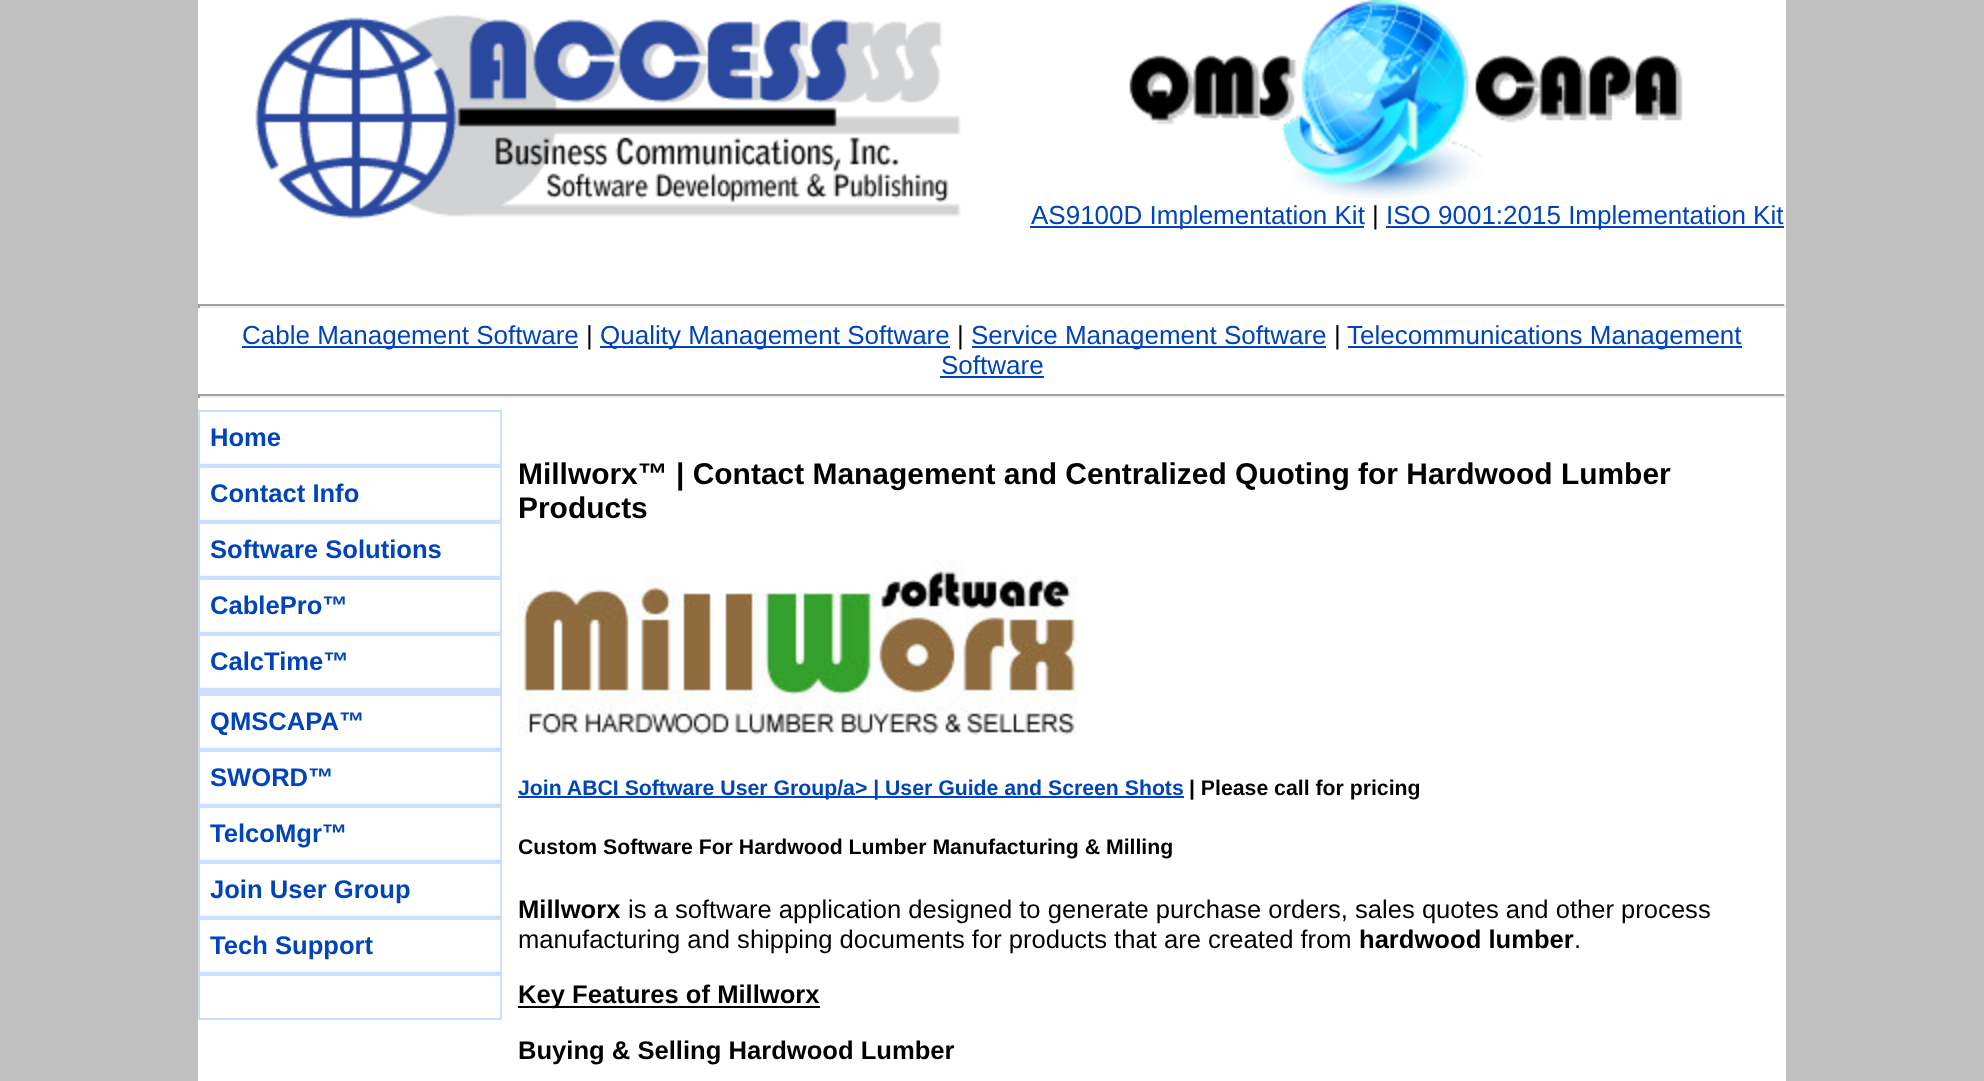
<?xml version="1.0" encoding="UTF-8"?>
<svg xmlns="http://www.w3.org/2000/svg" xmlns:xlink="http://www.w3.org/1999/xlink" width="1984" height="1081">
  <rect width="100%" height="100%" fill="#c0c0c0" />
  <rect x="198" width="1588" height="1081" fill="#ffffff" />
  <image x="255" y="14" width="706" height="205" xlink:href="image1.png" />
  <image x="1129" y="0" width="554" height="199" xlink:href="image2.png" />
  <rect x="1030" y="226" width="334" height="2" fill="#0044bb" />
  <rect x="1386" y="226" width="398" height="2" fill="#0044bb" />
  <rect x="198" y="304" width="1588" height="2" fill="#9f9f9f" />
  <rect x="1784" y="304" width="2" height="4" fill="#eeeeee" />
  <rect x="198" y="306" width="1588" height="2" fill="#eeeeee" />
  <rect x="198" y="304" width="2" height="4" fill="#9f9f9f" />
  <rect x="242" y="346" width="336" height="2" fill="#0044bb" />
  <rect x="600" y="346" width="350" height="2" fill="#0044bb" />
  <rect x="972" y="346" width="354" height="2" fill="#0044bb" />
  <rect x="1348" y="346" width="394" height="2" fill="#0044bb" />
  <rect x="940" y="376" width="104" height="2" fill="#0044bb" />
  <rect x="198" y="394" width="1588" height="2" fill="#9f9f9f" />
  <rect x="1784" y="394" width="2" height="4" fill="#eeeeee" />
  <rect x="198" y="396" width="1588" height="2" fill="#eeeeee" />
  <rect x="198" y="394" width="2" height="4" fill="#9f9f9f" />
  <rect x="199" y="411" width="302" height="54" fill="none" stroke="#ccddff" stroke-width="2" />
  <rect x="200" y="462" width="300" height="2" fill="#f9f9f9" />
  <rect x="199" y="467" width="302" height="54" fill="none" stroke="#ccddff" stroke-width="2" />
  <rect x="200" y="518" width="300" height="2" fill="#f9f9f9" />
  <rect x="199" y="523" width="302" height="54" fill="none" stroke="#ccddff" stroke-width="2" />
  <rect x="200" y="574" width="300" height="2" fill="#f9f9f9" />
  <rect x="199" y="579" width="302" height="54" fill="none" stroke="#ccddff" stroke-width="2" />
  <rect x="200" y="630" width="300" height="2" fill="#f9f9f9" />
  <rect x="199" y="635" width="302" height="54" fill="none" stroke="#ccddff" stroke-width="2" />
  <rect x="200" y="686" width="300" height="2" fill="#f9f9f9" />
  <rect x="198" y="690" width="304" height="4" fill="#ccddff" />
  <rect x="199" y="695" width="302" height="54" fill="none" stroke="#ccddff" stroke-width="2" />
  <rect x="200" y="746" width="300" height="2" fill="#f9f9f9" />
  <rect x="199" y="751" width="302" height="54" fill="none" stroke="#ccddff" stroke-width="2" />
  <rect x="200" y="802" width="300" height="2" fill="#f9f9f9" />
  <rect x="199" y="807" width="302" height="54" fill="none" stroke="#ccddff" stroke-width="2" />
  <rect x="200" y="858" width="300" height="2" fill="#f9f9f9" />
  <rect x="199" y="863" width="302" height="54" fill="none" stroke="#ccddff" stroke-width="2" />
  <rect x="200" y="914" width="300" height="2" fill="#f9f9f9" />
  <rect x="199" y="919" width="302" height="54" fill="none" stroke="#ccddff" stroke-width="2" />
  <rect x="200" y="970" width="300" height="2" fill="#f9f9f9" />
  <rect x="199" y="975" width="302" height="44" fill="none" stroke="#ccddff" stroke-width="2" />
  <image x="518" y="560" width="560" height="176" xlink:href="image3.png" />
  <rect x="518" y="796" width="666" height="2" fill="#0044bb" />
  <rect x="518" y="1006" width="302" height="2" fill="#000000" />
  <text x="1031" y="224" style="font-family: Liberation Sans; font-size: 26px; fill: #0044bb">AS9100D Implementation Kit</text>
  <text x="1372" y="224" style="font-family: Liberation Sans; font-size: 26px; fill: #000000">|</text>
  <text x="1386" y="224" style="font-family: Liberation Sans; font-size: 26px; fill: #0044bb">ISO 9001:2015 Implementation Kit</text>
  <text x="242" y="344" style="font-family: Liberation Sans; font-size: 26px; fill: #0044bb">Cable Management Software</text>
  <text x="586" y="344" style="font-family: Liberation Sans; font-size: 26px; fill: #000000">|</text>
  <text x="600" y="344" style="font-family: Liberation Sans; font-size: 26px; fill: #0044bb">Quality Management Software</text>
  <text x="957" y="344" style="font-family: Liberation Sans; font-size: 26px; fill: #000000">|</text>
  <text x="971" y="344" style="font-family: Liberation Sans; font-size: 26px; fill: #0044bb">Service Management Software</text>
  <text x="1334" y="344" style="font-family: Liberation Sans; font-size: 26px; fill: #000000">|</text>
  <text x="1347" y="344" style="font-family: Liberation Sans; font-size: 26px; fill: #0044bb">Telecommunications Management</text>
  <text x="941" y="374" style="font-family: Liberation Sans; font-size: 26px; fill: #0044bb">Software</text>
  <text x="210" y="446" style="font-family: Liberation Sans; font-size: 25.6px; font-weight: bold; fill: #0044bb">Home</text>
  <text x="210" y="502" style="font-family: Liberation Sans; font-size: 25.6px; font-weight: bold; fill: #0044bb">Contact Info</text>
  <text x="210" y="558" style="font-family: Liberation Sans; font-size: 25.6px; font-weight: bold; fill: #0044bb">Software Solutions</text>
  <text x="210" y="614" style="font-family: Liberation Sans; font-size: 25.6px; font-weight: bold; fill: #0044bb">CablePro™</text>
  <text x="210" y="670" style="font-family: Liberation Sans; font-size: 25.6px; font-weight: bold; fill: #0044bb">CalcTime™</text>
  <text x="210" y="730" style="font-family: Liberation Sans; font-size: 25.6px; font-weight: bold; fill: #0044bb">QMSCAPA™</text>
  <text x="210" y="786" style="font-family: Liberation Sans; font-size: 25.6px; font-weight: bold; fill: #0044bb">SWORD™</text>
  <text x="210" y="842" style="font-family: Liberation Sans; font-size: 25.6px; font-weight: bold; fill: #0044bb">TelcoMgr™</text>
  <text x="210" y="898" style="font-family: Liberation Sans; font-size: 25.6px; font-weight: bold; fill: #0044bb">Join User Group</text>
  <text x="210" y="954" style="font-family: Liberation Sans; font-size: 25.6px; font-weight: bold; fill: #0044bb">Tech Support</text>
  <text x="518" y="484" style="font-family: Liberation Sans; font-size: 29.95px; font-weight: bold; fill: #000000">Millworx™ | Contact Management and Centralized Quoting for Hardwood Lumber</text>
  <text x="518" y="518" style="font-family: Liberation Sans; font-size: 29.95px; font-weight: bold; fill: #000000">Products</text>
  <text x="518" y="795" style="font-family: Liberation Sans; font-size: 21.25px; font-weight: bold; fill: #0044bb">Join ABCI Software User Group/a&gt; |</text>
  <text x="885" y="795" style="font-family: Liberation Sans; font-size: 21.25px; font-weight: bold; fill: #0044bb">User Guide and Screen Shots</text>
  <text x="1189" y="795" style="font-family: Liberation Sans; font-size: 21.25px; font-weight: bold; fill: #000000">| Please call for pricing</text>
  <text x="518" y="854" style="font-family: Liberation Sans; font-size: 21.25px; font-weight: bold; fill: #000000">Custom Software For Hardwood Lumber Manufacturing &amp; Milling</text>
  <text x="518" y="918" style="font-family: Liberation Sans; font-size: 25.6px; font-weight: bold; fill: #000000">Millworx</text>
  <text x="628" y="918" style="font-family: Liberation Sans; font-size: 25.6px; fill: #000000">is a software application designed to generate purchase orders, sales quotes and other process</text>
  <text x="518" y="948" style="font-family: Liberation Sans; font-size: 25.6px; fill: #000000">manufacturing and shipping documents for products that are created from</text>
  <text x="1359" y="948" style="font-family: Liberation Sans; font-size: 25.6px; font-weight: bold; fill: #000000">hardwood lumber</text>
  <text x="1574" y="948" style="font-family: Liberation Sans; font-size: 25.6px; fill: #000000">.</text>
  <text x="518" y="1003" style="font-family: Liberation Sans; font-size: 25.6px; font-weight: bold; fill: #000000">Key Features of Millworx</text>
  <text x="518" y="1059" style="font-family: Liberation Sans; font-size: 25.6px; font-weight: bold; fill: #000000">Buying &amp; Selling Hardwood Lumber</text>
</svg>
